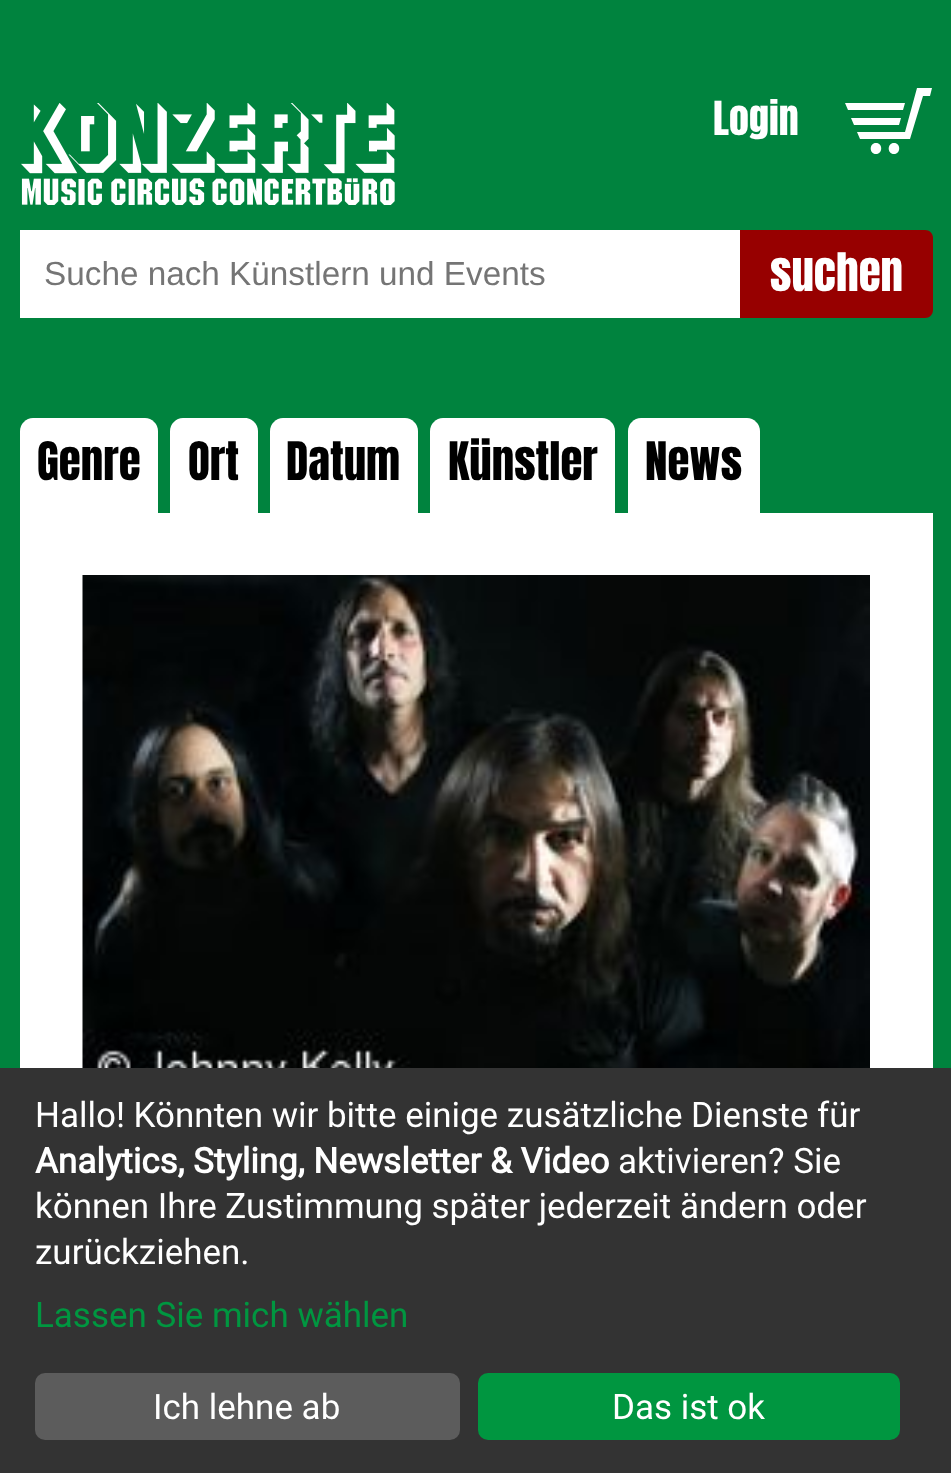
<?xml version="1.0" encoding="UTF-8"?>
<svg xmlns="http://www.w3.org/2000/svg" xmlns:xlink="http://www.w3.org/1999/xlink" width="951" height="1473">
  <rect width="100%" height="100%" fill="#00833e" />
  <image x="21" y="103" width="374" height="102" xlink:href="image1.png" />
  <path d="M 905 103 l -2 7 h -55 l -3 -7 z m -51 22 h 45 l 2 -7 h -50 z m 22 18 c -7 0 -7 11 0 11 c 7 0 7 -11 0 -11 z m 41 -55 l -12 44 h -48 l 3 7 h 50 l 13 -43 h 7 l 2 -8 z m -23 55 c -7 0 -7 11 0 11 c 7 0 7 -11 0 -11 z" fill="#ffffff" />
  <rect x="20" y="230" width="720" height="88" fill="#ffffff" />
  <path d="M 740 230 h 185 c 4.5 0 8 3.5 8 8 v 72 c 0 4.5 -3.5 8 -8 8 h -185 z" fill="#970000" />
  <path d="M 33 418 h 112 c 7 0 13 6 13 13 v 82 h -138 v -82 c 0 -7 6 -13 13 -13 z" fill="#ffffff" />
  <path d="M 183 418 h 62 c 7 0 13 6 13 13 v 82 h -88 v -82 c 0 -7 6 -13 13 -13 z" fill="#ffffff" />
  <path d="M 283 418 h 122 c 7 0 13 6 13 13 v 82 h -148 v -82 c 0 -7 6 -13 13 -13 z" fill="#ffffff" />
  <path d="M 443 418 h 159 c 7 0 13 6 13 13 v 82 h -185 v -82 c 0 -7 6 -13 13 -13 z" fill="#ffffff" />
  <path d="M 641 418 h 106 c 7 0 13 6 13 13 v 82 h -132 v -82 c 0 -7 6 -13 13 -13 z" fill="#ffffff" />
  <rect x="20" y="513" width="913" height="555" fill="#ffffff" />
  <image x="82" y="575" width="788" height="493" xlink:href="image2.png" />
  <rect y="1068" width="951" height="405" fill="#333333" />
  <rect x="35" y="1373" width="425" height="67" rx="10" fill="#5c5c5c" />
  <rect x="478" y="1373" width="422" height="67" rx="10" fill="#009640" />
  <text x="713" y="135" style="font-family: Anton; font-size: 40px; fill: #ffffff">Login</text>
  <text x="44" y="285" style="font-family: Liberation Sans; font-size: 33.3px; fill: #757575">Suche nach Künstlern und Events</text>
  <text x="770" y="291" style="font-family: Anton; font-size: 45px; fill: #ffffff">suchen</text>
  <text x="37" y="480" style="font-family: Anton; font-size: 45px; fill: #000000">Genre</text>
  <text x="188" y="480" style="font-family: Anton; font-size: 45px; fill: #000000">Ort</text>
  <text x="286" y="480" style="font-family: Anton; font-size: 45px; fill: #000000">Datum</text>
  <text x="448" y="480" style="font-family: Anton; font-size: 45px; fill: #000000">Künstler</text>
  <text x="645" y="480" style="font-family: Anton; font-size: 45px; fill: #000000">News</text>
  <text x="35" y="1127" style="font-family: Roboto; font-size: 35px; fill: #ffffff">Hallo! Könnten wir bitte einige zusätzliche Dienste für</text>
  <text x="35" y="1173" style="font-family: Roboto; font-size: 35px; font-weight: bold; fill: #ffffff">Analytics, Styling, Newsletter &amp; Video</text>
  <text x="618" y="1173" style="font-family: Roboto; font-size: 35px; fill: #ffffff">aktivieren? Sie</text>
  <text x="35" y="1218" style="font-family: Roboto; font-size: 35px; fill: #ffffff">können Ihre Zustimmung später jederzeit ändern oder</text>
  <text x="35" y="1264" style="font-family: Roboto; font-size: 35px; fill: #ffffff">zurückziehen.</text>
  <text x="35" y="1327" style="font-family: Roboto; font-size: 35px; fill: #009640">Lassen Sie mich wählen</text>
  <text x="153" y="1419" style="font-family: Roboto; font-size: 35px; fill: #ffffff">Ich lehne ab</text>
  <text x="612" y="1419" style="font-family: Roboto; font-size: 35px; fill: #ffffff">Das ist ok</text>
</svg>
